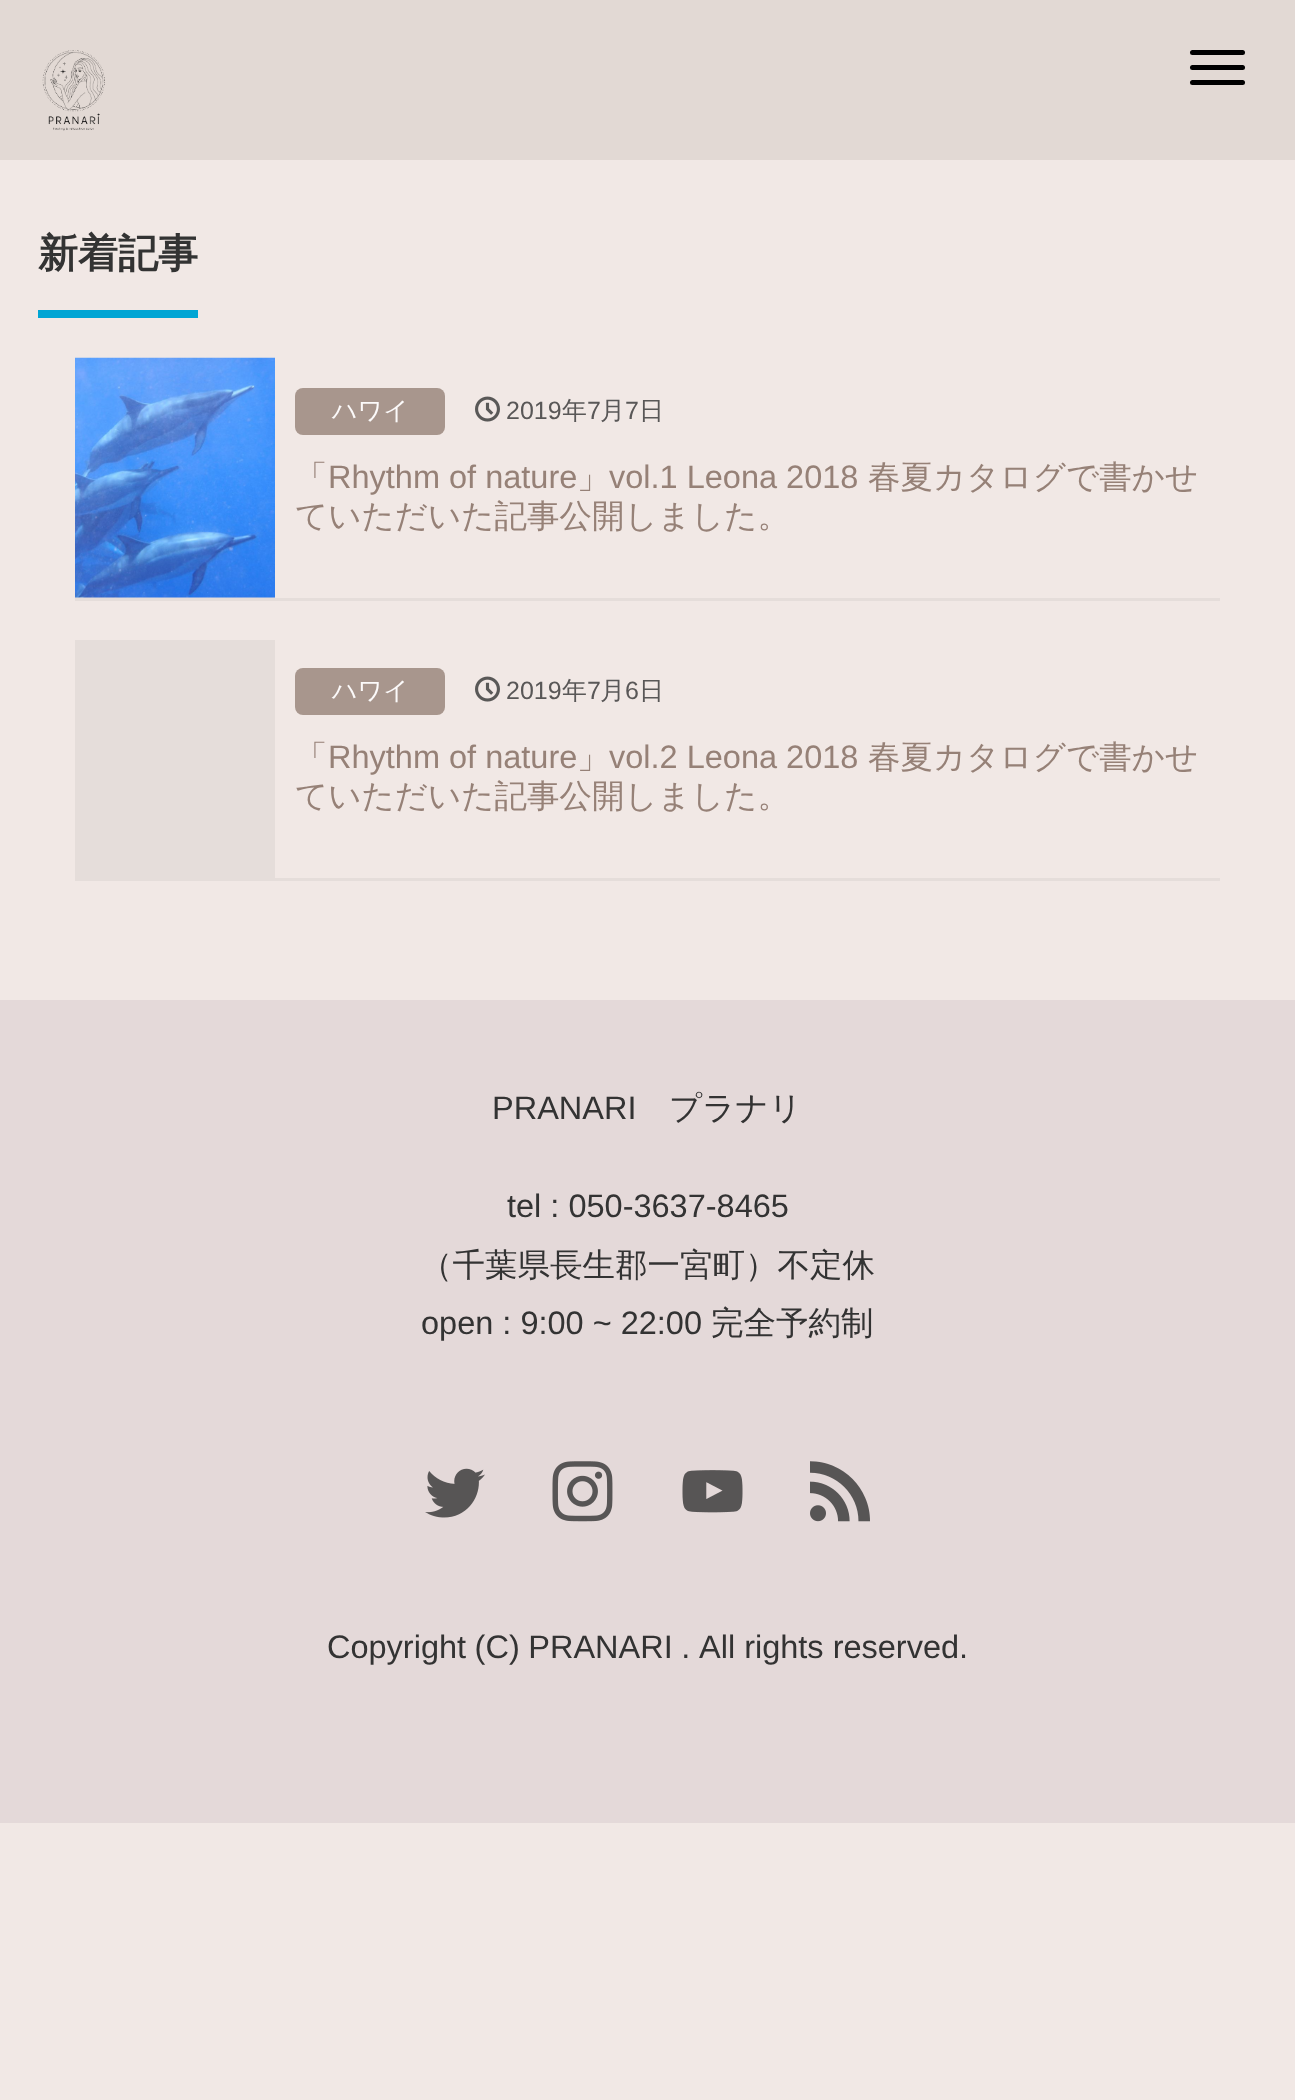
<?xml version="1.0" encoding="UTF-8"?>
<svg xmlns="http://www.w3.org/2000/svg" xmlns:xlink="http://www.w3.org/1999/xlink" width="1295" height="2100">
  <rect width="100%" height="100%" fill="#f1e8e5" />
  <rect width="1295" height="160" fill="#e2d9d4" />
  <image x="42" y="50" width="63" height="81" xlink:href="image1.png" />
  <rect x="1190" y="50" width="55" height="5" rx="2.5" fill="#000000" />
  <rect x="1190" y="65" width="55" height="5" rx="2.5" fill="#000000" />
  <rect x="1190" y="80" width="55" height="5" rx="2.5" fill="#000000" />
  <rect x="38" y="310" width="160" height="8" fill="#00a5d4" />
  <rect x="75" y="598" width="1145" height="3" fill="#e5ddda" />
  <rect x="75" y="597" width="200" height="1" fill="#e5ddda" />
  <image x="75" y="357" width="200" height="241" xlink:href="image2.png" />
  <rect x="295" y="388" width="150" height="47" rx="8" fill="#a8968d" />
  <image x="475" y="396" width="25" height="26" xlink:href="image3.png" />
  <rect x="75" y="878" width="1145" height="3" fill="#e5ddda" />
  <rect x="75" y="640" width="200" height="238" fill="#e5ddda" />
  <rect x="295" y="668" width="150" height="47" rx="8" fill="#a8968d" />
  <image x="475" y="676" width="25" height="26" xlink:href="image3.png" />
  <rect y="1000" width="1295" height="823" fill="#e4d9d9" />
  <image x="425" y="1468" width="60" height="50" xlink:href="image4.png" />
  <image x="552" y="1461" width="61" height="61" xlink:href="image5.png" />
  <image x="682" y="1470" width="61" height="43" xlink:href="image6.png" />
  <image x="810" y="1461" width="60" height="61" xlink:href="image7.png" />
  <text x="38" y="267" style="font-family: WenQuanYi Zen Hei; font-size: 40px; font-weight: bold; fill: #333333">新着記事</text>
  <text x="332" y="419" style="font-family: WenQuanYi Zen Hei; font-size: 25px; font-weight: 500; fill: #fcfafa">ハワイ</text>
  <text x="506" y="419" style="font-family: Liberation Sans; font-size: 25px; fill: #595757">2019</text>
  <text x="562" y="419" style="font-family: WenQuanYi Zen Hei; font-size: 25px; font-weight: 500; fill: #595757">年</text>
  <text x="587" y="419" style="font-family: Liberation Sans; font-size: 25px; fill: #595757">7</text>
  <text x="600" y="419" style="font-family: WenQuanYi Zen Hei; font-size: 25px; font-weight: 500; fill: #595757">月</text>
  <text x="625" y="419" style="font-family: Liberation Sans; font-size: 25px; fill: #595757">7</text>
  <text x="639" y="419" style="font-family: WenQuanYi Zen Hei; font-size: 25px; font-weight: 500; fill: #595757">日</text>
  <text x="295" y="488" style="font-family: WenQuanYi Zen Hei; font-size: 32.5px; font-weight: 500; fill: #968177">「</text>
  <text x="328" y="488" style="font-family: Liberation Sans; font-size: 32.5px; fill: #968177">Rhythm of nature</text>
  <text x="577" y="488" style="font-family: WenQuanYi Zen Hei; font-size: 32.5px; font-weight: 500; fill: #968177">」</text>
  <text x="609" y="488" style="font-family: Liberation Sans; font-size: 32.5px; fill: #968177">vol.1 Leona 2018</text>
  <text x="868" y="488" style="font-family: WenQuanYi Zen Hei; font-size: 32.5px; font-weight: 500; fill: #968177">春夏カタログで書かせ</text>
  <text x="295" y="527" style="font-family: WenQuanYi Zen Hei; font-size: 32.5px; font-weight: 500; fill: #968177">ていただいた記事公開しました。</text>
  <text x="332" y="699" style="font-family: WenQuanYi Zen Hei; font-size: 25px; font-weight: 500; fill: #fcfafa">ハワイ</text>
  <text x="506" y="699" style="font-family: Liberation Sans; font-size: 25px; fill: #595757">2019</text>
  <text x="562" y="699" style="font-family: WenQuanYi Zen Hei; font-size: 25px; font-weight: 500; fill: #595757">年</text>
  <text x="587" y="699" style="font-family: Liberation Sans; font-size: 25px; fill: #595757">7</text>
  <text x="600" y="699" style="font-family: WenQuanYi Zen Hei; font-size: 25px; font-weight: 500; fill: #595757">月</text>
  <text x="625" y="699" style="font-family: Liberation Sans; font-size: 25px; fill: #595757">6</text>
  <text x="639" y="699" style="font-family: WenQuanYi Zen Hei; font-size: 25px; font-weight: 500; fill: #595757">日</text>
  <text x="295" y="768" style="font-family: WenQuanYi Zen Hei; font-size: 32.5px; font-weight: 500; fill: #968177">「</text>
  <text x="328" y="768" style="font-family: Liberation Sans; font-size: 32.5px; fill: #968177">Rhythm of nature</text>
  <text x="577" y="768" style="font-family: WenQuanYi Zen Hei; font-size: 32.5px; font-weight: 500; fill: #968177">」</text>
  <text x="609" y="768" style="font-family: Liberation Sans; font-size: 32.5px; fill: #968177">vol.2 Leona 2018</text>
  <text x="868" y="768" style="font-family: WenQuanYi Zen Hei; font-size: 32.5px; font-weight: 500; fill: #968177">春夏カタログで書かせ</text>
  <text x="295" y="807" style="font-family: WenQuanYi Zen Hei; font-size: 32.5px; font-weight: 500; fill: #968177">ていただいた記事公開しました。</text>
  <text x="492" y="1119" style="font-family: Liberation Sans; font-size: 32.5px; fill: #333333">PRANARI</text>
  <text x="669" y="1119" style="font-family: WenQuanYi Zen Hei; font-size: 32.5px; font-weight: 500; fill: #333333">プラナリ</text>
  <text x="507" y="1217" style="font-family: Liberation Sans; font-size: 32.5px; fill: #333333">tel : 050-3637-8465</text>
  <text x="420" y="1276" style="font-family: WenQuanYi Zen Hei; font-size: 32.5px; font-weight: 500; fill: #333333">（千葉県長生郡一宮町）不定休</text>
  <text x="421" y="1334" style="font-family: Liberation Sans; font-size: 32.5px; fill: #333333">open : 9:00 ~ 22:00</text>
  <text x="711" y="1334" style="font-family: WenQuanYi Zen Hei; font-size: 32.5px; font-weight: 500; fill: #333333">完全予約制</text>
  <text x="327" y="1658" word-spacing="-0.5" style="font-family: Liberation Sans; font-size: 32.5px; fill: #333333">Copyright (C) PRANARI .</text>
  <text x="699" y="1658" style="font-family: Liberation Sans; font-size: 32.5px; fill: #333333">All rights reserved.</text>
</svg>
